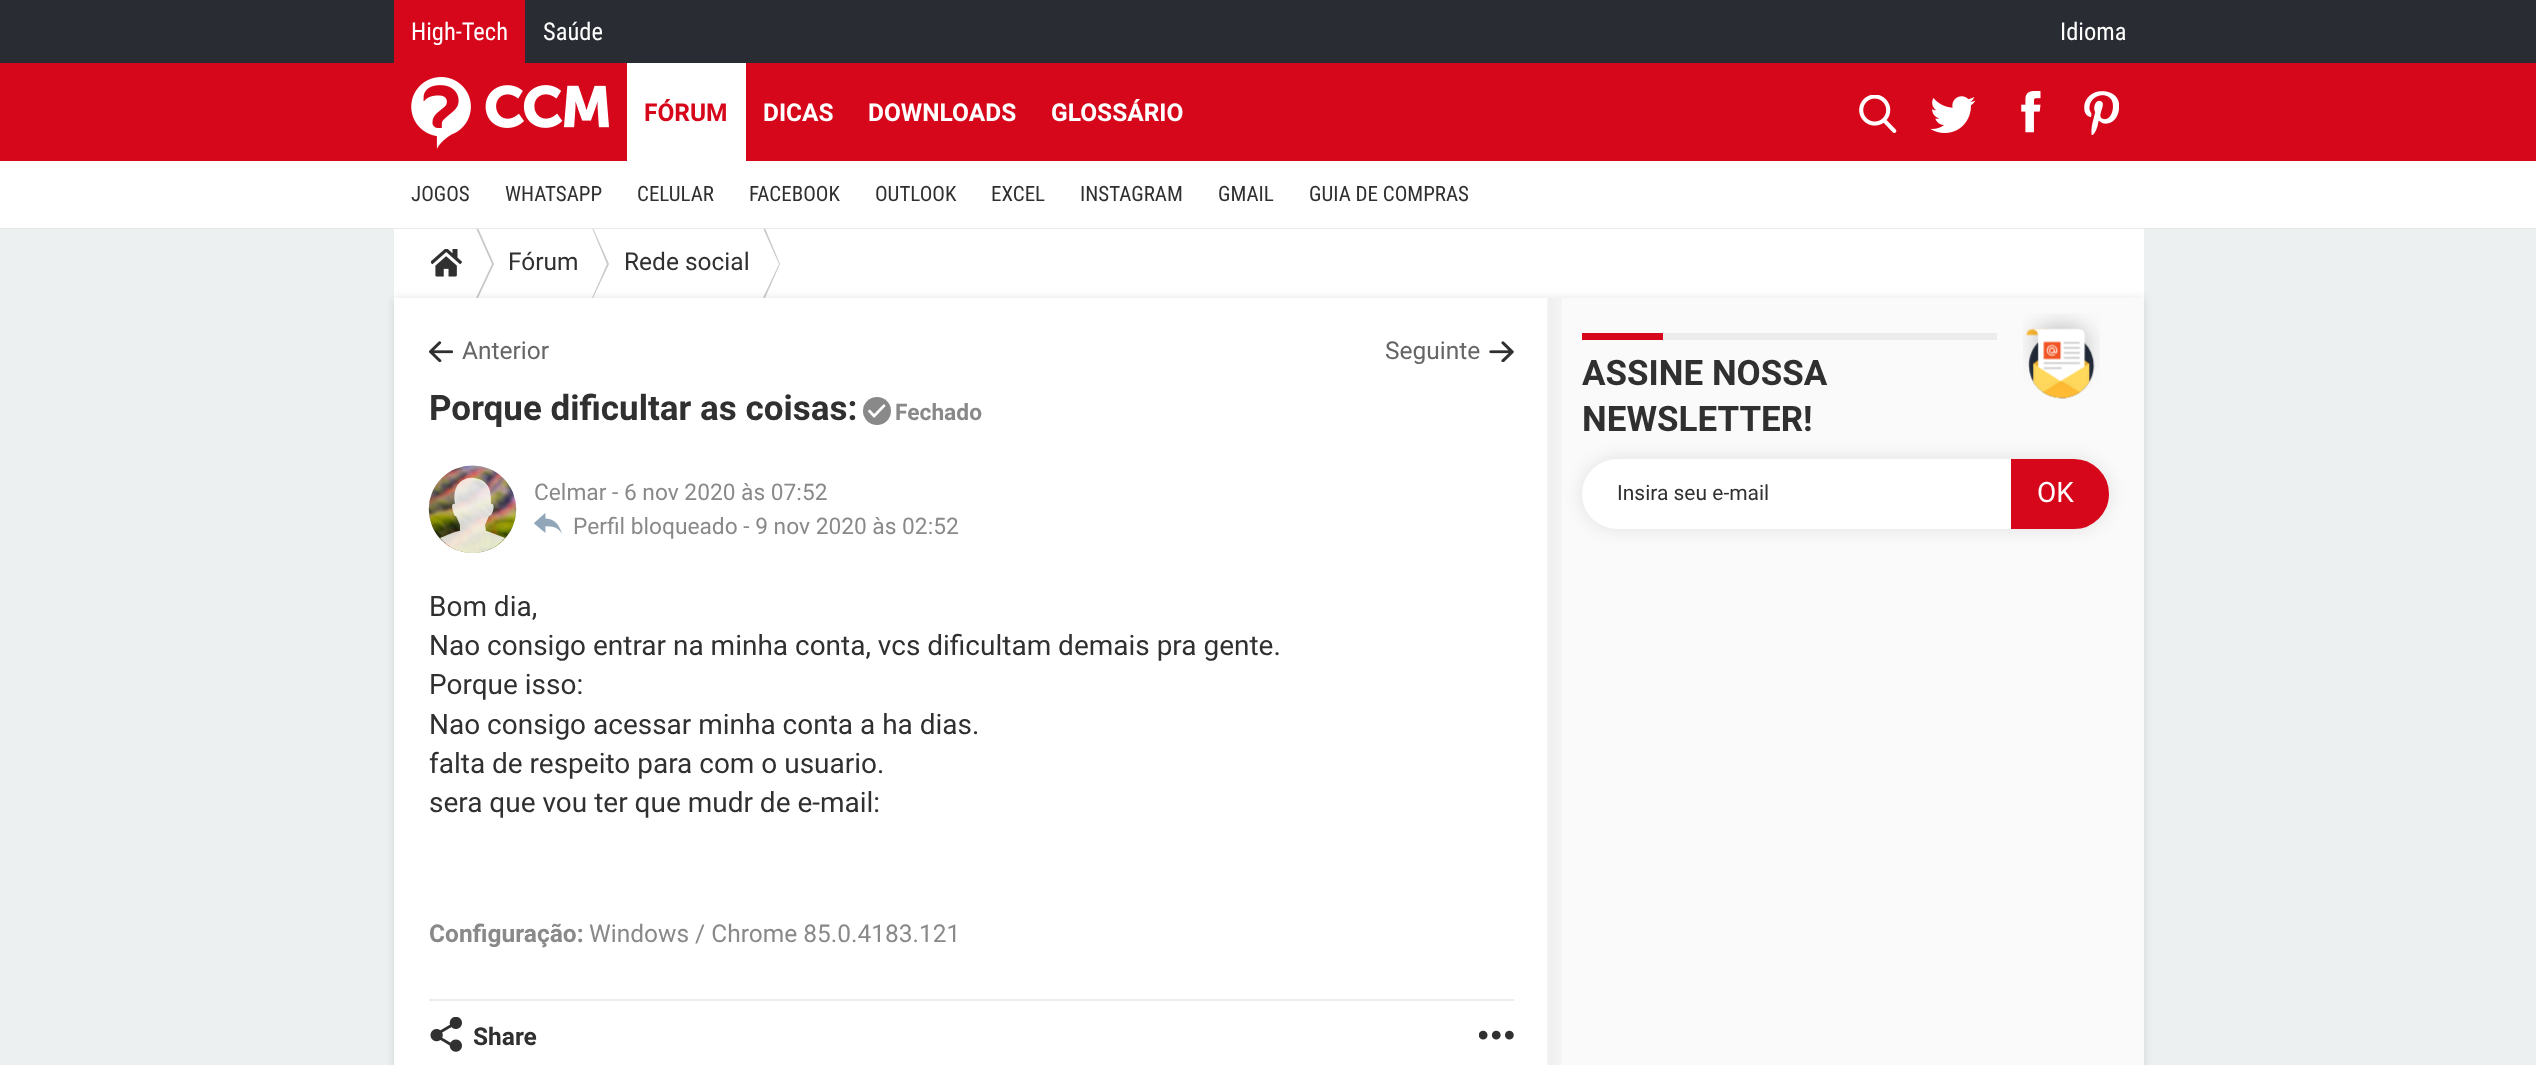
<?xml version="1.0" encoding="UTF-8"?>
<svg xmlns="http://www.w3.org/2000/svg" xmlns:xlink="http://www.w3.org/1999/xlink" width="2536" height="1065">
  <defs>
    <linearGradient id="g1" gradientUnits="userSpaceOnUse" x1="1547" y1="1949" x2="1573" y2="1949"><stop offset="0" stop-color="#000000" stop-opacity="0.05" /><stop offset="1" stop-color="#000000" stop-opacity="0" /></linearGradient>
  </defs>
  <rect width="100%" height="100%" fill="#edf0f0" />
  <rect x="394" y="229" width="1750" height="69" fill="#ffffff" />
  <path d="M 476 228 h 2 l 16 36 l -16 34 h -2 l 16 -34 z" fill="#c9c9c9" fill-rule="evenodd" />
  <path d="M 592 228 h 1 l 16 36 l -16 34 h -1 l 15 -34 z" fill="#c9c9c9" fill-rule="evenodd" />
  <path d="M 763 228 h 2 l 15 36 l -15 34 h -2 l 16 -34 z" fill="#c9c9c9" fill-rule="evenodd" />
  <path d="M 0 228 v 1 h 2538 v -227 v 226 z" fill="#e9e9e9" />
  <rect y="161" width="2536" height="67" fill="#ffffff" />
  <rect width="2536" height="63" fill="#292d33" />
  <rect x="394" width="131" height="63" fill="#d6071b" />
  <rect y="63" width="2536" height="98" fill="#d6071b" />
  <image x="411" y="77" width="198" height="72" xlink:href="image1.png" />
  <image x="1859" y="95" width="38" height="38" xlink:href="image2.png" />
  <image x="1930" y="96" width="46" height="37" xlink:href="image3.png" />
  <image x="2021" y="91" width="20" height="42" xlink:href="image4.png" />
  <image x="2084" y="91" width="35" height="44" xlink:href="image5.png" />
  <rect x="627" y="63" width="119" height="98" fill="#ffffff" />
  <image x="431" y="249" width="31" height="28" xlink:href="image6.png" />
  <rect x="394" y="298" width="1750" height="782" fill="#000000" fill-opacity="0.1" filter="blur(5px)" />
  <rect x="394" y="298" width="1155" height="767" fill="#ffffff" />
  <image x="429" y="341" width="24" height="21" xlink:href="image7.png" />
  <image x="1489" y="341" width="25" height="21" xlink:href="image8.png" />
  <circle cx="877" cy="411" r="14" fill="#898989" />
  <image x="868" y="404" width="18" height="14" xlink:href="image9.png" />
  <circle cx="472.5" cy="509.5" r="43.5" fill="#b0becb" />
  <image x="428" y="465" width="89" height="88" xlink:href="image10.png" />
  <path d="M 487 531 l 18 7 c -17 20 -48 20 -65 0 c 5 -2 18 -8 20 -7 v -6 l -4 -9 h -1 c -1 -1 -6 -14 0 -12 c -1 -4 -1 -11 1 -16 c 6 -14 27 -13 33 0 c 2 5 2 12 2 16 c 5 -2 2 12 -2 12 l -4 9 l 1 6 z" fill="#ffffff" fill-opacity="0.8" />
  <image x="534" y="513" width="28" height="21" xlink:href="image11.png" />
  <rect x="429" y="999" width="1085" height="2" fill="#ececec" />
  <image x="430" y="1017" width="32" height="35" xlink:href="image12.png" />
  <image x="1479" y="1030" width="35" height="10" xlink:href="image13.png" />
  <rect x="1549" y="298" width="595" height="767" fill="#fafafa" />
  <rect x="1547" y="298" width="15" height="767" fill="url(#g1)" />
  <rect x="1663" y="333" width="334" height="7" fill="#ececec" />
  <rect x="1582" y="333" width="81" height="7" fill="#d6071b" />
  <image x="2023" y="313" width="77" height="86" xlink:href="image14.png" />
  <rect x="1582" y="459" width="527" height="70" rx="35" fill="#000000" fill-opacity="0.1" filter="blur(9px)" />
  <rect x="1582" y="459" width="527" height="70" rx="35" fill="#ffffff" />
  <path d="M 2013 461 h 61 c 18 0 33 15 33 33 c 0 18 -15 33 -33 33 h -61 z" fill="#d6071b" stroke="#d6071b" stroke-width="4" />
  <text x="411" y="40" style="font-family: Roboto Condensed; font-size: 24.5px; fill: #ffffff">High-Tech</text>
  <text x="543" y="40" style="font-family: Roboto Condensed; font-size: 24.5px; fill: #ffffff">Saúde</text>
  <text x="2060" y="40" style="font-family: Roboto Condensed; font-size: 24.5px; fill: #ffffff">Idioma</text>
  <text x="644" y="121" style="font-family: Roboto; font-size: 24.5px; font-weight: bold; fill: #d6071b">FÓRUM</text>
  <text x="763" y="121" style="font-family: Roboto; font-size: 24.5px; font-weight: bold; fill: #ffffff">DICAS</text>
  <text x="868" y="121" style="font-family: Roboto; font-size: 24.5px; font-weight: bold; fill: #ffffff">DOWNLOADS</text>
  <text x="1051" y="121" style="font-family: Roboto; font-size: 24.5px; font-weight: bold; fill: #ffffff">GLOSSÁRIO</text>
  <text x="411" y="201" style="font-family: Roboto Condensed; font-size: 21px; fill: #303030">JOGOS</text>
  <text x="505" y="201" style="font-family: Roboto Condensed; font-size: 21px; fill: #303030">WHATSAPP</text>
  <text x="637" y="201" style="font-family: Roboto Condensed; font-size: 21px; fill: #303030">CELULAR</text>
  <text x="749" y="201" style="font-family: Roboto Condensed; font-size: 21px; fill: #303030">FACEBOOK</text>
  <text x="875" y="201" style="font-family: Roboto Condensed; font-size: 21px; fill: #303030">OUTLOOK</text>
  <text x="991" y="201" style="font-family: Roboto Condensed; font-size: 21px; fill: #303030">EXCEL</text>
  <text x="1080" y="201" style="font-family: Roboto Condensed; font-size: 21px; fill: #303030">INSTAGRAM</text>
  <text x="1218" y="201" style="font-family: Roboto Condensed; font-size: 21px; fill: #303030">GMAIL</text>
  <text x="1309" y="201" style="font-family: Roboto Condensed; font-size: 21px; fill: #303030">GUIA DE COMPRAS</text>
  <text x="508" y="270" style="font-family: Roboto; font-size: 24.5px; fill: #303030">Fórum</text>
  <text x="624" y="270" style="font-family: Roboto; font-size: 24.5px; fill: #303030">Rede social</text>
  <text x="462" y="359" style="font-family: Roboto; font-size: 24.5px; fill: #666666">Anterior</text>
  <text x="1385" y="359" style="font-family: Roboto; font-size: 24.5px; fill: #666666">Seguinte</text>
  <text x="429" y="420" style="font-family: Roboto; font-size: 35px; font-weight: bold; fill: #303030">Porque dificultar as coisas:</text>
  <text x="895" y="420" style="font-family: Roboto; font-size: 22.75px; font-weight: bold; fill: #898989">Fechado</text>
  <text x="534" y="500" style="font-family: Roboto; font-size: 22.75px; fill: #898989">Celmar - 6 nov 2020 às 07:52</text>
  <text x="573" y="534" style="font-family: Roboto; font-size: 22.75px; fill: #898989">Perfil bloqueado - 9 nov 2020 às 02:52</text>
  <text x="429" y="616" style="font-family: Roboto; font-size: 28px; fill: #303030">Bom dia,</text>
  <text x="429" y="655" style="font-family: Roboto; font-size: 28px; fill: #303030">Nao consigo entrar na minha conta, vcs dificultam demais pra gente.</text>
  <text x="429" y="694" style="font-family: Roboto; font-size: 28px; fill: #303030">Porque isso:</text>
  <text x="429" y="734" style="font-family: Roboto; font-size: 28px; fill: #303030">Nao consigo acessar minha conta a ha dias.</text>
  <text x="429" y="773" style="font-family: Roboto; font-size: 28px; fill: #303030">falta de respeito para com o usuario.</text>
  <text x="429" y="812" style="font-family: Roboto; font-size: 28px; fill: #303030">sera que vou ter que mudr de e-mail:</text>
  <text x="429" y="942" style="font-family: Roboto; font-size: 24.5px; font-weight: bold; fill: #898989">Configuração:</text>
  <text x="589" y="942" style="font-family: Roboto; font-size: 24.5px; fill: #898989">Windows / Chrome 85.0.4183.121</text>
  <text x="473" y="1045" style="font-family: Roboto; font-size: 24.5px; font-weight: bold; fill: #303030">Share</text>
  <text x="1582" y="385" style="font-family: Roboto; font-size: 35px; font-weight: bold; fill: #303030">ASSINE NOSSA</text>
  <text x="1582" y="431" style="font-family: Roboto; font-size: 35px; font-weight: bold; fill: #303030">NEWSLETTER!</text>
  <text x="1617" y="500" style="font-family: Roboto; font-size: 21px; fill: #303030">Insira seu e-mail</text>
  <text x="2037" y="502" style="font-family: Roboto; font-size: 28px; fill: #ffffff">OK</text>
</svg>
